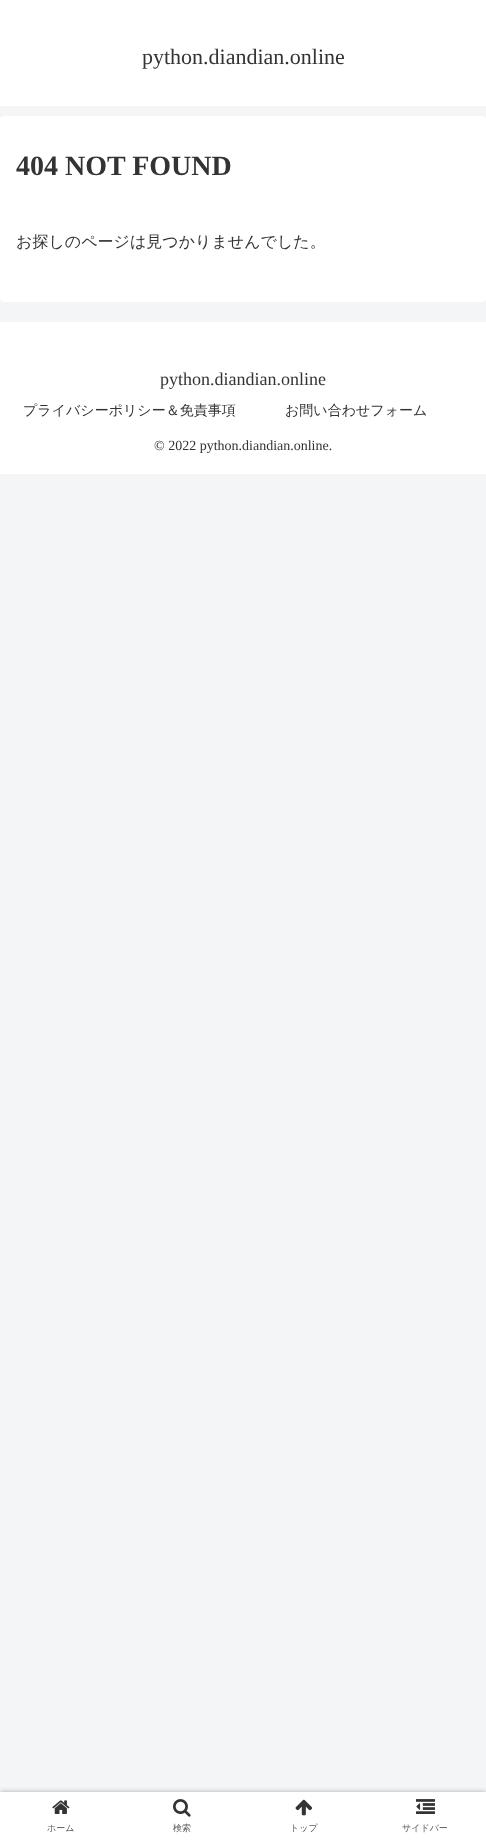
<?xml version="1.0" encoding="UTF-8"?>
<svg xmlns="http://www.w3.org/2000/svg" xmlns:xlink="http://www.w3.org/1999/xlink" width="486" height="1842">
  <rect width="100%" height="100%" fill="#f4f5f7" />
  <rect width="486" height="106" fill="#ffffff" />
  <rect y="116" width="486" height="186" rx="4" fill="#ffffff" />
  <rect y="322" width="486" height="152" fill="#ffffff" />
  <rect y="1792" width="486" height="50" fill="#a9a9a9" filter="blur(2.5px)" />
  <rect y="1792" width="486" height="50" fill="#ffffff" />
  <image x="52" y="1800" width="18" height="14" xlink:href="image1.png" />
  <image x="173" y="1799" width="18" height="18" xlink:href="image2.png" />
  <image x="295" y="1799" width="17" height="17" xlink:href="image3.png" />
  <image x="416" y="1799" width="19" height="15" xlink:href="image4.png" />
  <text x="142" y="64" style="font-family: Liberation Serif; font-size: 22px; fill: #333333">python.diandian.online</text>
  <text x="16" y="175" style="font-family: Liberation Serif; font-size: 28px; font-weight: bold; fill: #333333">404 NOT FOUND</text>
  <text x="16" y="247" style="font-family: WenQuanYi Zen Hei; font-size: 16px; font-weight: 500; fill: #333333">お探しのページは見つかりませんでした。</text>
  <text x="160" y="385" style="font-family: Liberation Serif; font-size: 18px; fill: #333333">python.diandian.online</text>
  <text x="23" y="415" style="font-family: WenQuanYi Zen Hei; font-size: 14px; font-weight: 500; fill: #333333">プライバシーポリシー＆免責事項</text>
  <text x="285" y="415" style="font-family: WenQuanYi Zen Hei; font-size: 14px; font-weight: 500; fill: #333333">お問い合わせフォーム</text>
  <text x="154" y="450" style="font-family: Liberation Serif; font-size: 14px; fill: #333333">© 2022 python.diandian.online.</text>
  <text x="47" y="1831" style="font-family: WenQuanYi Zen Hei; font-size: 9px; font-weight: 500; fill: #5c5c5c">ホーム</text>
  <text x="173" y="1831" style="font-family: WenQuanYi Zen Hei; font-size: 9px; font-weight: 500; fill: #5c5c5c">検索</text>
  <text x="290" y="1831" style="font-family: WenQuanYi Zen Hei; font-size: 9px; font-weight: 500; fill: #5c5c5c">トップ</text>
  <text x="402" y="1831" style="font-family: WenQuanYi Zen Hei; font-size: 9px; font-weight: 500; fill: #5c5c5c">サイドバー</text>
</svg>
